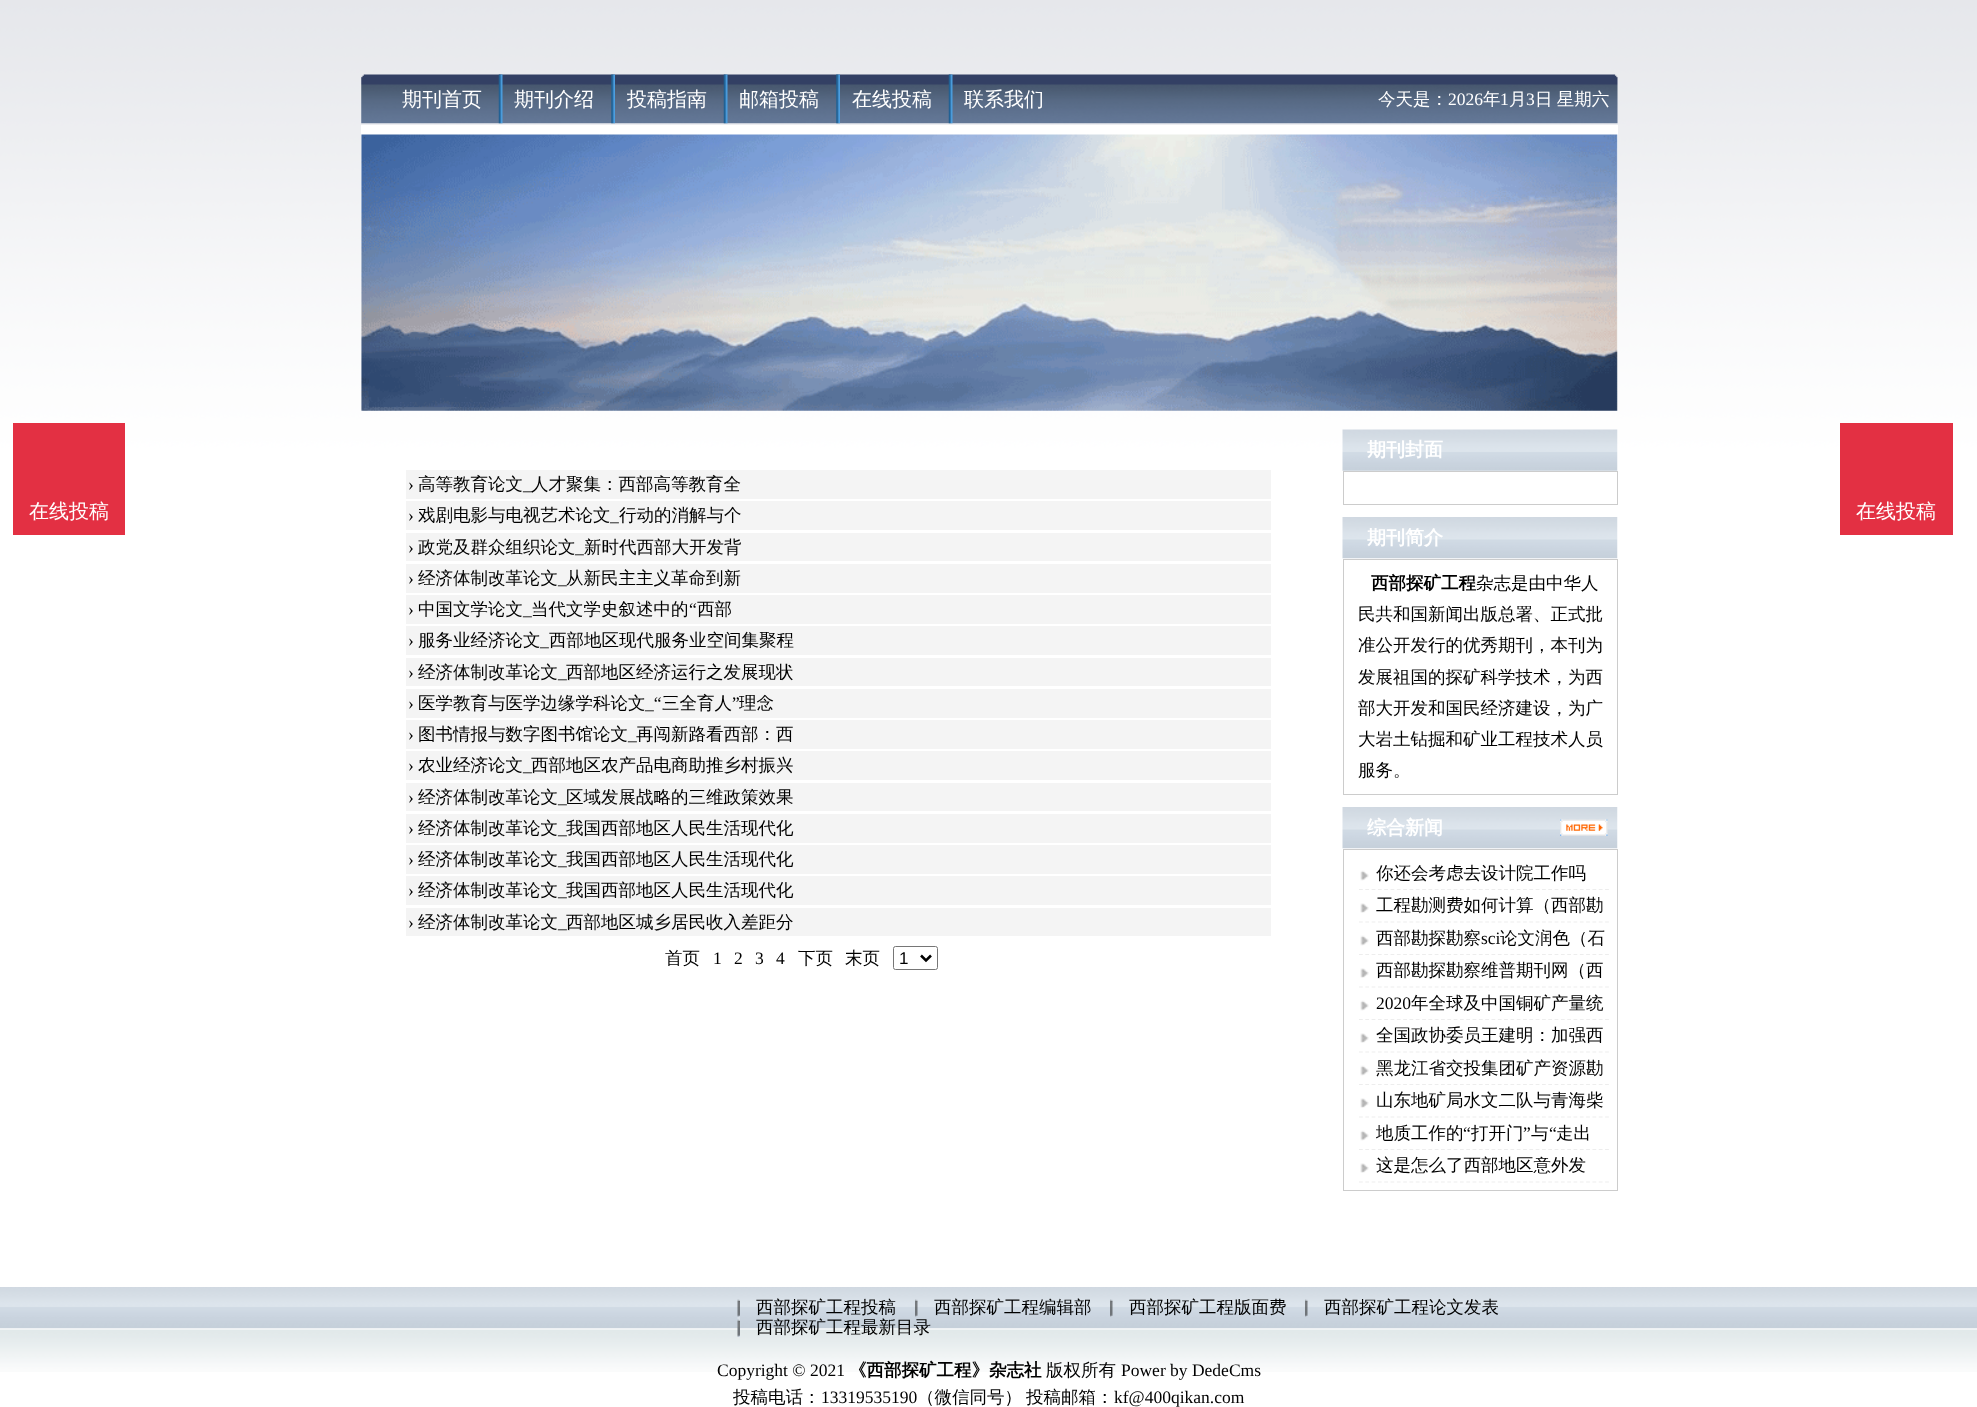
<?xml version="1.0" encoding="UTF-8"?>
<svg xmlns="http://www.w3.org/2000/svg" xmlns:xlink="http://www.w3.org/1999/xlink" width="1977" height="1407">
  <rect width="100%" height="100%" fill="#ffffff" />
  <image x="0" y="0" width="1977" height="1407" xlink:href="image1.png" />
  <rect x="13" y="423" width="112" height="112" fill="#e33043" />
  <image x="361" y="74" width="1257" height="50" xlink:href="image2.png" />
  <image x="498" y="74" width="5" height="50" xlink:href="image3.png" />
  <image x="611" y="74" width="4" height="50" xlink:href="image4.png" />
  <image x="723" y="74" width="5" height="50" xlink:href="image5.png" />
  <image x="836" y="74" width="4" height="50" xlink:href="image6.png" />
  <image x="948" y="74" width="5" height="50" xlink:href="image7.png" />
  <rect x="361" y="125" width="1257" height="266" fill="#ffffff" />
  <image x="361" y="134" width="1257" height="277" xlink:href="image8.png" />
  <rect x="406" y="470" width="865" height="29" fill="#f4f4f4" />
  <rect x="406" y="501" width="865" height="29" fill="#f4f4f4" />
  <rect x="406" y="533" width="865" height="28" fill="#f4f4f4" />
  <rect x="406" y="564" width="865" height="29" fill="#f4f4f4" />
  <rect x="406" y="595" width="865" height="29" fill="#f4f4f4" />
  <rect x="406" y="626" width="865" height="29" fill="#f4f4f4" />
  <rect x="406" y="658" width="865" height="28" fill="#f4f4f4" />
  <rect x="406" y="689" width="865" height="29" fill="#f4f4f4" />
  <rect x="406" y="720" width="865" height="29" fill="#f4f4f4" />
  <rect x="406" y="751" width="865" height="29" fill="#f4f4f4" />
  <rect x="406" y="783" width="865" height="28" fill="#f4f4f4" />
  <rect x="406" y="814" width="865" height="29" fill="#f4f4f4" />
  <rect x="406" y="845" width="865" height="29" fill="#f4f4f4" />
  <rect x="406" y="876" width="865" height="29" fill="#f4f4f4" />
  <rect x="406" y="908" width="865" height="28" fill="#f4f4f4" />
  <rect x="893.5" y="946.5" width="44" height="23" rx="2" fill="none" stroke="#767676" />
  <path d="M 921 955.5 l 5 5 l 5 -5" fill="none" stroke="#000000" stroke-width="2.5" />
  <image x="1342" y="429" width="276" height="42" xlink:href="image9.png" />
  <rect x="1343.5" y="471.5" width="274" height="33" fill="none" stroke="#cccccc" />
  <image x="1342" y="517" width="276" height="42" xlink:href="image10.png" />
  <rect x="1343.5" y="559.5" width="274" height="235" fill="none" stroke="#cccccc" />
  <image x="1342" y="807" width="276" height="42" xlink:href="image11.png" />
  <image x="1560" y="819" width="48" height="17" xlink:href="image12.png" />
  <rect x="1343.5" y="849.5" width="274" height="341" fill="none" stroke="#cccccc" />
  <image x="1360" y="870" width="9" height="11" xlink:href="image13.png" />
  <path d="M 1359 889.5 h 250" fill="none" stroke="#ededed" stroke-width="1.2" stroke-dasharray="3.75 2.56" />
  <image x="1360" y="903" width="9" height="10" xlink:href="image14.png" />
  <path d="M 1359 922 h 250" fill="none" stroke="#ededed" stroke-width="1.2" stroke-dasharray="3.75 2.56" />
  <image x="1360" y="935" width="9" height="11" xlink:href="image13.png" />
  <path d="M 1359 954.5 h 250" fill="none" stroke="#ededed" stroke-width="1.2" stroke-dasharray="3.75 2.56" />
  <image x="1360" y="968" width="9" height="10" xlink:href="image14.png" />
  <path d="M 1359 987 h 250" fill="none" stroke="#ededed" stroke-width="1.2" stroke-dasharray="3.75 2.56" />
  <image x="1360" y="1000" width="9" height="11" xlink:href="image13.png" />
  <path d="M 1359 1019.5 h 250" fill="none" stroke="#ededed" stroke-width="1.2" stroke-dasharray="3.75 2.56" />
  <image x="1360" y="1033" width="9" height="10" xlink:href="image14.png" />
  <path d="M 1359 1052 h 250" fill="none" stroke="#ededed" stroke-width="1.2" stroke-dasharray="3.75 2.56" />
  <image x="1360" y="1065" width="9" height="11" xlink:href="image13.png" />
  <path d="M 1359 1084.5 h 250" fill="none" stroke="#ededed" stroke-width="1.2" stroke-dasharray="3.75 2.56" />
  <image x="1360" y="1098" width="9" height="10" xlink:href="image15.png" />
  <path d="M 1359 1117 h 250" fill="none" stroke="#ededed" stroke-width="1.2" stroke-dasharray="3.75 2.56" />
  <image x="1360" y="1130" width="9" height="11" xlink:href="image13.png" />
  <path d="M 1359 1149.5 h 250" fill="none" stroke="#ededed" stroke-width="1.2" stroke-dasharray="3.75 2.56" />
  <image x="1360" y="1163" width="9" height="10" xlink:href="image14.png" />
  <path d="M 1359 1182 h 250" fill="none" stroke="#ededed" stroke-width="1.2" stroke-dasharray="3.75 2.56" />
  <rect x="1840" y="423" width="113" height="112" fill="#e33043" />
  <image x="0" y="1287" width="1977" height="85" xlink:href="image16.png" />
  <image x="737" y="1299" width="3" height="18" xlink:href="image17.png" />
  <image x="915" y="1299" width="3" height="18" xlink:href="image18.png" />
  <image x="1110" y="1299" width="3" height="18" xlink:href="image18.png" />
  <image x="1305" y="1299" width="3" height="18" xlink:href="image18.png" />
  <image x="737" y="1317" width="3" height="20" xlink:href="image19.png" />
  <text x="29" y="518" style="font-family: WenQuanYi Zen Hei; font-size: 20px; font-weight: 500; fill: #ffffff">在线投稿</text>
  <text x="402" y="106" style="font-family: WenQuanYi Zen Hei; font-size: 20px; font-weight: 500; fill: #ffffff">期刊首页</text>
  <text x="514" y="106" style="font-family: WenQuanYi Zen Hei; font-size: 20px; font-weight: 500; fill: #ffffff">期刊介绍</text>
  <text x="627" y="106" style="font-family: WenQuanYi Zen Hei; font-size: 20px; font-weight: 500; fill: #ffffff">投稿指南</text>
  <text x="739" y="106" style="font-family: WenQuanYi Zen Hei; font-size: 20px; font-weight: 500; fill: #ffffff">邮箱投稿</text>
  <text x="852" y="106" style="font-family: WenQuanYi Zen Hei; font-size: 20px; font-weight: 500; fill: #ffffff">在线投稿</text>
  <text x="964" y="106" style="font-family: WenQuanYi Zen Hei; font-size: 20px; font-weight: 500; fill: #ffffff">联系我们</text>
  <text x="1378" y="105" style="font-family: WenQuanYi Zen Hei; font-size: 17.5px; font-weight: 500; fill: #ffffff">今天是：</text>
  <text x="1448" y="105" style="font-family: Liberation Serif; font-size: 17.5px; fill: #ffffff">2026</text>
  <text x="1483" y="105" style="font-family: WenQuanYi Zen Hei; font-size: 17.5px; font-weight: 500; fill: #ffffff">年</text>
  <text x="1500" y="105" style="font-family: Liberation Serif; font-size: 17.5px; fill: #ffffff">1</text>
  <text x="1509" y="105" style="font-family: WenQuanYi Zen Hei; font-size: 17.5px; font-weight: 500; fill: #ffffff">月</text>
  <text x="1526" y="105" style="font-family: Liberation Serif; font-size: 17.5px; fill: #ffffff">3</text>
  <text x="1535" y="105" word-spacing="-1" style="font-family: WenQuanYi Zen Hei; font-size: 17.5px; font-weight: 500; fill: #ffffff">日 星期六</text>
  <text x="408" y="490" style="font-family: Liberation Serif; font-size: 17.5px; fill: #000000">›</text>
  <text x="418" y="490" style="font-family: WenQuanYi Zen Hei; font-size: 17.5px; font-weight: 500; fill: #000000">高等教育论文</text>
  <text x="523" y="490" style="font-family: Liberation Serif; font-size: 17.5px; fill: #000000">_</text>
  <text x="531" y="490" style="font-family: WenQuanYi Zen Hei; font-size: 17.5px; font-weight: 500; fill: #000000">人才聚集：西部高等教育全</text>
  <text x="408" y="521" style="font-family: Liberation Serif; font-size: 17.5px; fill: #000000">›</text>
  <text x="418" y="521" style="font-family: WenQuanYi Zen Hei; font-size: 17.5px; font-weight: 500; fill: #000000">戏剧电影与电视艺术论文</text>
  <text x="610" y="521" style="font-family: Liberation Serif; font-size: 17.5px; fill: #000000">_</text>
  <text x="619" y="521" style="font-family: WenQuanYi Zen Hei; font-size: 17.5px; font-weight: 500; fill: #000000">行动的消解与个</text>
  <text x="408" y="553" style="font-family: Liberation Serif; font-size: 17.5px; fill: #000000">›</text>
  <text x="418" y="553" style="font-family: WenQuanYi Zen Hei; font-size: 17.5px; font-weight: 500; fill: #000000">政党及群众组织论文</text>
  <text x="575" y="553" style="font-family: Liberation Serif; font-size: 17.5px; fill: #000000">_</text>
  <text x="584" y="553" style="font-family: WenQuanYi Zen Hei; font-size: 17.5px; font-weight: 500; fill: #000000">新时代西部大开发背</text>
  <text x="408" y="584" style="font-family: Liberation Serif; font-size: 17.5px; fill: #000000">›</text>
  <text x="418" y="584" style="font-family: WenQuanYi Zen Hei; font-size: 17.5px; font-weight: 500; fill: #000000">经济体制改革论文</text>
  <text x="558" y="584" style="font-family: Liberation Serif; font-size: 17.5px; fill: #000000">_</text>
  <text x="566" y="584" style="font-family: WenQuanYi Zen Hei; font-size: 17.5px; font-weight: 500; fill: #000000">从新民主主义革命到新</text>
  <text x="418" y="615" style="font-family: WenQuanYi Zen Hei; font-size: 17.5px; font-weight: 500; fill: #000000">中国文学论文</text>
  <text x="531" y="615" style="font-family: WenQuanYi Zen Hei; font-size: 17.5px; font-weight: 500; fill: #000000">当代文学史叙述中的</text>
  <text x="689" y="615" style="font-family: Liberation Serif; font-size: 17.5px; fill: #000000">“</text>
  <text x="697" y="615" style="font-family: WenQuanYi Zen Hei; font-size: 17.5px; font-weight: 500; fill: #000000">西部</text>
  <text x="408" y="615" style="font-family: Liberation Serif; font-size: 17.5px; fill: #000000">›</text>
  <text x="523" y="615" style="font-family: Liberation Serif; font-size: 17.5px; fill: #000000">_</text>
  <text x="408" y="646" style="font-family: Liberation Serif; font-size: 17.5px; fill: #000000">›</text>
  <text x="418" y="646" style="font-family: WenQuanYi Zen Hei; font-size: 17.5px; font-weight: 500; fill: #000000">服务业经济论文</text>
  <text x="540" y="646" style="font-family: Liberation Serif; font-size: 17.5px; fill: #000000">_</text>
  <text x="549" y="646" style="font-family: WenQuanYi Zen Hei; font-size: 17.5px; font-weight: 500; fill: #000000">西部地区现代服务业空间集聚程</text>
  <text x="408" y="678" style="font-family: Liberation Serif; font-size: 17.5px; fill: #000000">›</text>
  <text x="418" y="678" style="font-family: WenQuanYi Zen Hei; font-size: 17.5px; font-weight: 500; fill: #000000">经济体制改革论文</text>
  <text x="558" y="678" style="font-family: Liberation Serif; font-size: 17.5px; fill: #000000">_</text>
  <text x="566" y="678" style="font-family: WenQuanYi Zen Hei; font-size: 17.5px; font-weight: 500; fill: #000000">西部地区经济运行之发展现状</text>
  <text x="418" y="709" style="font-family: WenQuanYi Zen Hei; font-size: 17.5px; font-weight: 500; fill: #000000">医学教育与医学边缘学科论文</text>
  <text x="645" y="709" style="font-family: Liberation Serif; font-size: 17.5px; fill: #000000">_“</text>
  <text x="662" y="709" style="font-family: WenQuanYi Zen Hei; font-size: 17.5px; font-weight: 500; fill: #000000">三全育人</text>
  <text x="732" y="709" style="font-family: Liberation Serif; font-size: 17.5px; fill: #000000">”</text>
  <text x="739" y="709" style="font-family: WenQuanYi Zen Hei; font-size: 17.5px; font-weight: 500; fill: #000000">理念</text>
  <text x="408" y="709" style="font-family: Liberation Serif; font-size: 17.5px; fill: #000000">›</text>
  <text x="408" y="740" style="font-family: Liberation Serif; font-size: 17.5px; fill: #000000">›</text>
  <text x="418" y="740" style="font-family: WenQuanYi Zen Hei; font-size: 17.5px; font-weight: 500; fill: #000000">图书情报与数字图书馆论文</text>
  <text x="628" y="740" style="font-family: Liberation Serif; font-size: 17.5px; fill: #000000">_</text>
  <text x="636" y="740" style="font-family: WenQuanYi Zen Hei; font-size: 17.5px; font-weight: 500; fill: #000000">再闯新路看西部：西</text>
  <text x="408" y="771" style="font-family: Liberation Serif; font-size: 17.5px; fill: #000000">›</text>
  <text x="418" y="771" style="font-family: WenQuanYi Zen Hei; font-size: 17.5px; font-weight: 500; fill: #000000">农业经济论文</text>
  <text x="523" y="771" style="font-family: Liberation Serif; font-size: 17.5px; fill: #000000">_</text>
  <text x="531" y="771" style="font-family: WenQuanYi Zen Hei; font-size: 17.5px; font-weight: 500; fill: #000000">西部地区农产品电商助推乡村振兴</text>
  <text x="408" y="803" style="font-family: Liberation Serif; font-size: 17.5px; fill: #000000">›</text>
  <text x="418" y="803" style="font-family: WenQuanYi Zen Hei; font-size: 17.5px; font-weight: 500; fill: #000000">经济体制改革论文</text>
  <text x="566" y="803" style="font-family: WenQuanYi Zen Hei; font-size: 17.5px; font-weight: 500; fill: #000000">区域发展战略的三维政策效果</text>
  <text x="558" y="803" style="font-family: Liberation Serif; font-size: 17.5px; fill: #000000">_</text>
  <text x="408" y="834" style="font-family: Liberation Serif; font-size: 17.5px; fill: #000000">›</text>
  <text x="418" y="834" style="font-family: WenQuanYi Zen Hei; font-size: 17.5px; font-weight: 500; fill: #000000">经济体制改革论文</text>
  <text x="558" y="834" style="font-family: Liberation Serif; font-size: 17.5px; fill: #000000">_</text>
  <text x="566" y="834" style="font-family: WenQuanYi Zen Hei; font-size: 17.5px; font-weight: 500; fill: #000000">我国西部地区人民生活现代化</text>
  <text x="408" y="865" style="font-family: Liberation Serif; font-size: 17.5px; fill: #000000">›</text>
  <text x="418" y="865" style="font-family: WenQuanYi Zen Hei; font-size: 17.5px; font-weight: 500; fill: #000000">经济体制改革论文</text>
  <text x="558" y="865" style="font-family: Liberation Serif; font-size: 17.5px; fill: #000000">_</text>
  <text x="566" y="865" style="font-family: WenQuanYi Zen Hei; font-size: 17.5px; font-weight: 500; fill: #000000">我国西部地区人民生活现代化</text>
  <text x="408" y="896" style="font-family: Liberation Serif; font-size: 17.5px; fill: #000000">›</text>
  <text x="418" y="896" style="font-family: WenQuanYi Zen Hei; font-size: 17.5px; font-weight: 500; fill: #000000">经济体制改革论文</text>
  <text x="558" y="896" style="font-family: Liberation Serif; font-size: 17.5px; fill: #000000">_</text>
  <text x="566" y="896" style="font-family: WenQuanYi Zen Hei; font-size: 17.5px; font-weight: 500; fill: #000000">我国西部地区人民生活现代化</text>
  <text x="408" y="928" style="font-family: Liberation Serif; font-size: 17.5px; fill: #000000">›</text>
  <text x="418" y="928" style="font-family: WenQuanYi Zen Hei; font-size: 17.5px; font-weight: 500; fill: #000000">经济体制改革论文</text>
  <text x="558" y="928" style="font-family: Liberation Serif; font-size: 17.5px; fill: #000000">_</text>
  <text x="566" y="928" style="font-family: WenQuanYi Zen Hei; font-size: 17.5px; font-weight: 500; fill: #000000">西部地区城乡居民收入差距分</text>
  <text x="665" y="964" style="font-family: WenQuanYi Zen Hei; font-size: 17.5px; font-weight: 500; fill: #000000">首页</text>
  <text x="713" y="964" style="font-family: Liberation Serif; font-size: 17.5px; fill: #000000">1</text>
  <text x="734" y="964" style="font-family: Liberation Serif; font-size: 17.5px; fill: #000000">2</text>
  <text x="755" y="964" style="font-family: Liberation Serif; font-size: 17.5px; fill: #000000">3</text>
  <text x="776" y="964" style="font-family: Liberation Serif; font-size: 17.5px; fill: #000000">4</text>
  <text x="798" y="964" style="font-family: WenQuanYi Zen Hei; font-size: 17.5px; font-weight: 500; fill: #000000">下页</text>
  <text x="845" y="964" style="font-family: WenQuanYi Zen Hei; font-size: 17.5px; font-weight: 500; fill: #000000">末页</text>
  <text x="899" y="964" style="font-family: Liberation Sans; font-size: 17px; fill: #000000">1</text>
  <text x="1367" y="456" style="font-family: WenQuanYi Zen Hei; font-size: 19px; font-weight: bold; fill: #ffffff">期刊封面</text>
  <text x="1367" y="544" style="font-family: WenQuanYi Zen Hei; font-size: 19px; font-weight: bold; fill: #ffffff">期刊简介</text>
  <text x="1371" y="589" style="font-family: WenQuanYi Zen Hei; font-size: 17.5px; font-weight: bold; fill: #000000">西部探矿工程</text>
  <text x="1476" y="589" style="font-family: WenQuanYi Zen Hei; font-size: 17.5px; font-weight: 500; fill: #000000">杂志是由中华人</text>
  <text x="1358" y="620" style="font-family: WenQuanYi Zen Hei; font-size: 17.5px; font-weight: 500; fill: #000000">民共和国新闻出版总署、正式批</text>
  <text x="1358" y="651" style="font-family: WenQuanYi Zen Hei; font-size: 17.5px; font-weight: 500; fill: #000000">准公开发行的优秀期刊，本刊为</text>
  <text x="1358" y="683" style="font-family: WenQuanYi Zen Hei; font-size: 17.5px; font-weight: 500; fill: #000000">发展祖国的探矿科学技术，为西</text>
  <text x="1358" y="714" style="font-family: WenQuanYi Zen Hei; font-size: 17.5px; font-weight: 500; fill: #000000">部大开发和国民经济建设，为广</text>
  <text x="1358" y="745" style="font-family: WenQuanYi Zen Hei; font-size: 17.5px; font-weight: 500; fill: #000000">大岩土钻掘和矿业工程技术人员</text>
  <text x="1358" y="776" style="font-family: WenQuanYi Zen Hei; font-size: 17.5px; font-weight: 500; fill: #000000">服务。</text>
  <text x="1367" y="834" style="font-family: WenQuanYi Zen Hei; font-size: 19px; font-weight: bold; fill: #ffffff">综合新闻</text>
  <text x="1376" y="879" style="font-family: WenQuanYi Zen Hei; font-size: 17.5px; font-weight: 500; fill: #000000">你还会考虑去设计院工作吗</text>
  <text x="1376" y="911" style="font-family: WenQuanYi Zen Hei; font-size: 17.5px; font-weight: 500; fill: #000000">工程勘测费如何计算（西部勘</text>
  <text x="1376" y="944" style="font-family: WenQuanYi Zen Hei; font-size: 17.5px; font-weight: 500; fill: #000000">西部勘探勘察</text>
  <text x="1481" y="944" style="font-family: Liberation Serif; font-size: 17.5px; fill: #000000">sci</text>
  <text x="1500" y="944" style="font-family: WenQuanYi Zen Hei; font-size: 17.5px; font-weight: 500; fill: #000000">论文润色（石</text>
  <text x="1376" y="976" style="font-family: WenQuanYi Zen Hei; font-size: 17.5px; font-weight: 500; fill: #000000">西部勘探勘察维普期刊网（西</text>
  <text x="1376" y="1009" style="font-family: Liberation Serif; font-size: 17.5px; fill: #000000">2020</text>
  <text x="1411" y="1009" style="font-family: WenQuanYi Zen Hei; font-size: 17.5px; font-weight: 500; fill: #000000">年全球及中国铜矿产量统</text>
  <text x="1376" y="1041" style="font-family: WenQuanYi Zen Hei; font-size: 17.5px; font-weight: 500; fill: #000000">全国政协委员王建明：加强西</text>
  <text x="1376" y="1074" style="font-family: WenQuanYi Zen Hei; font-size: 17.5px; font-weight: 500; fill: #000000">黑龙江省交投集团矿产资源勘</text>
  <text x="1376" y="1106" style="font-family: WenQuanYi Zen Hei; font-size: 17.5px; font-weight: 500; fill: #000000">山东地矿局水文二队与青海柴</text>
  <text x="1376" y="1139" style="font-family: WenQuanYi Zen Hei; font-size: 17.5px; font-weight: 500; fill: #000000">地质工作的</text>
  <text x="1463" y="1139" style="font-family: Liberation Serif; font-size: 17.5px; fill: #000000">“</text>
  <text x="1471" y="1139" style="font-family: WenQuanYi Zen Hei; font-size: 17.5px; font-weight: 500; fill: #000000">打开门</text>
  <text x="1523" y="1139" style="font-family: Liberation Serif; font-size: 17.5px; fill: #000000">”</text>
  <text x="1531" y="1139" style="font-family: WenQuanYi Zen Hei; font-size: 17.5px; font-weight: 500; fill: #000000">与</text>
  <text x="1549" y="1139" style="font-family: Liberation Serif; font-size: 17.5px; fill: #000000">“</text>
  <text x="1556" y="1139" style="font-family: WenQuanYi Zen Hei; font-size: 17.5px; font-weight: 500; fill: #000000">走出</text>
  <text x="1376" y="1171" style="font-family: WenQuanYi Zen Hei; font-size: 17.5px; font-weight: 500; fill: #000000">这是怎么了西部地区意外发</text>
  <text x="1856" y="518" style="font-family: WenQuanYi Zen Hei; font-size: 20px; font-weight: 500; fill: #ffffff">在线投稿</text>
  <text x="756" y="1313" style="font-family: WenQuanYi Zen Hei; font-size: 17.5px; font-weight: 500; fill: #000000">西部探矿工程投稿</text>
  <text x="934" y="1313" style="font-family: WenQuanYi Zen Hei; font-size: 17.5px; font-weight: 500; fill: #000000">西部探矿工程编辑部</text>
  <text x="1129" y="1313" style="font-family: WenQuanYi Zen Hei; font-size: 17.5px; font-weight: 500; fill: #000000">西部探矿工程版面费</text>
  <text x="1324" y="1313" style="font-family: WenQuanYi Zen Hei; font-size: 17.5px; font-weight: 500; fill: #000000">西部探矿工程论文发表</text>
  <text x="756" y="1333" style="font-family: WenQuanYi Zen Hei; font-size: 17.5px; font-weight: 500; fill: #000000">西部探矿工程最新目录</text>
  <text x="717" y="1376" style="font-family: Liberation Serif; font-size: 17.5px; fill: #000000">Copyright © 2021</text>
  <text x="849" y="1376" style="font-family: WenQuanYi Zen Hei; font-size: 17.5px; font-weight: bold; fill: #000000">《西部探矿工程》杂志社</text>
  <text x="1046" y="1376" style="font-family: WenQuanYi Zen Hei; font-size: 17.5px; font-weight: 500; fill: #000000">版权所有</text>
  <text x="1121" y="1376" style="font-family: Liberation Serif; font-size: 17.5px; fill: #000000">Power by DedeCms</text>
  <text x="733" y="1403" style="font-family: WenQuanYi Zen Hei; font-size: 17.5px; font-weight: 500; fill: #000000">投稿电话：</text>
  <text x="821" y="1403" style="font-family: Liberation Serif; font-size: 17.5px; fill: #000000">13319535190</text>
  <text x="917" y="1403" style="font-family: WenQuanYi Zen Hei; font-size: 17.5px; font-weight: 500; fill: #000000">（微信同号）</text>
  <text x="1026" y="1403" style="font-family: WenQuanYi Zen Hei; font-size: 17.5px; font-weight: 500; fill: #000000">投稿邮箱：</text>
  <text x="1114" y="1403" style="font-family: Liberation Serif; font-size: 17.5px; fill: #000000">kf@400qikan.com</text>
</svg>
